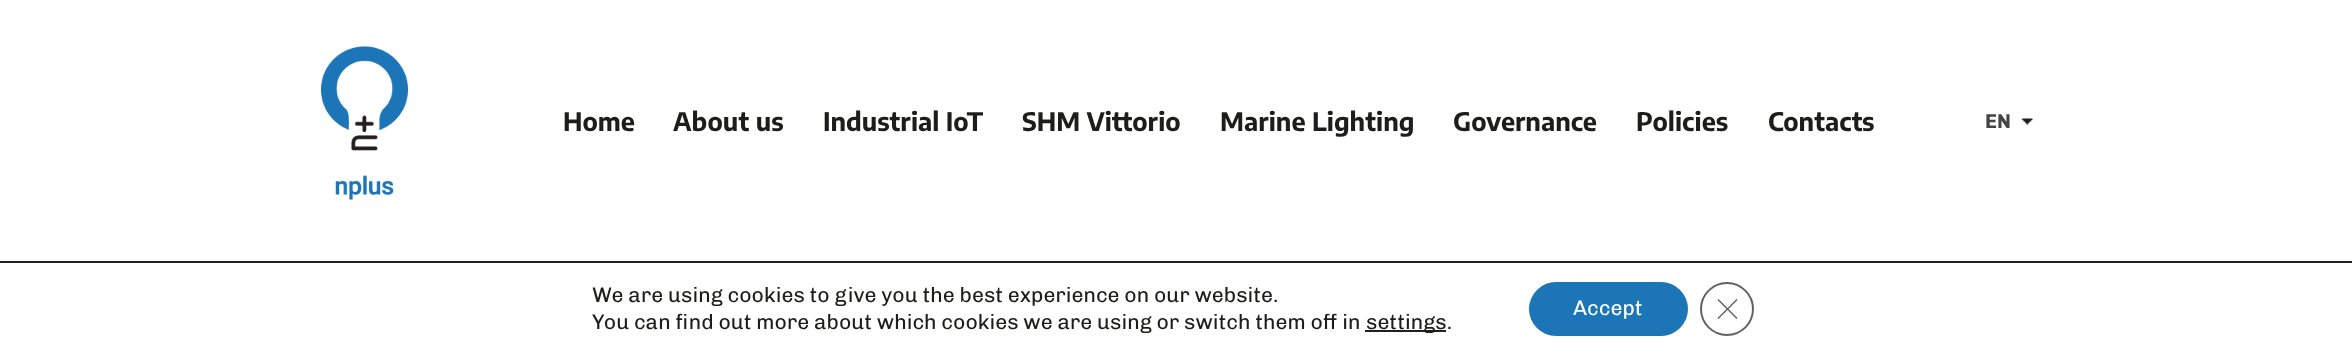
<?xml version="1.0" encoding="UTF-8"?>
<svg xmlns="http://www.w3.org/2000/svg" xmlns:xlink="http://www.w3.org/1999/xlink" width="2352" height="355">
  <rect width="100%" height="100%" fill="#ffffff" />
  <image x="321" y="46" width="87" height="154" xlink:href="image1.png" />
  <image x="2021" y="118" width="12" height="7" xlink:href="image2.png" />
  <rect y="261" width="2352" height="2" fill="#202020" />
  <rect x="1365" y="330" width="81" height="2" fill="#202020" />
  <rect x="1529" y="282" width="159" height="54" rx="27" fill="#1b75b6" />
  <circle cx="1727" cy="309" r="26" fill="none" stroke="#626262" stroke-width="2" />
  <path d="M 1736.5 299 l 1 1 l -19 19 l -1 -1 z" fill="#626262" />
  <path d="M 1717.5 300 l 1 -1 l 19 19 l -1 1 z" fill="#626262" />
  <text x="563" y="131" style="font-family: Encode Sans Condensed; font-size: 25.5px; font-weight: bold; fill: #1d1d1b">Home</text>
  <text x="673" y="131" style="font-family: Encode Sans Condensed; font-size: 25.5px; font-weight: bold; fill: #1d1d1b">About us</text>
  <text x="823" y="131" style="font-family: Encode Sans Condensed; font-size: 25.5px; font-weight: bold; fill: #1d1d1b">Industrial IoT</text>
  <text x="1022" y="131" style="font-family: Encode Sans Condensed; font-size: 25.5px; font-weight: bold; fill: #1d1d1b">SHM Vittorio</text>
  <text x="1220" y="131" style="font-family: Encode Sans Condensed; font-size: 25.5px; font-weight: bold; fill: #1d1d1b">Marine Lighting</text>
  <text x="1453" y="131" style="font-family: Encode Sans Condensed; font-size: 25.5px; font-weight: bold; fill: #1d1d1b">Governance</text>
  <text x="1636" y="131" style="font-family: Encode Sans Condensed; font-size: 25.5px; font-weight: bold; fill: #1d1d1b">Policies</text>
  <text x="1768" y="131" style="font-family: Encode Sans Condensed; font-size: 25.5px; font-weight: bold; fill: #1d1d1b">Contacts</text>
  <text x="1985" y="128" style="font-family: Chivo; font-size: 20px; font-weight: bold; fill: #444444">EN</text>
  <text x="592" y="302" style="font-family: Chivo; font-size: 21px; fill: #1d1d1b">We are using cookies to give you the best experience on our website.</text>
  <text x="592" y="329" style="font-family: Chivo; font-size: 21px; fill: #1d1d1b">You can find out more about which cookies we are using or switch them off in</text>
  <text x="1366" y="329" style="font-family: Chivo; font-size: 21px; fill: #1d1d1b">settings.</text>
  <text x="1573" y="315" style="font-family: Chivo; font-size: 21px; fill: #ffffff">Accept</text>
</svg>
